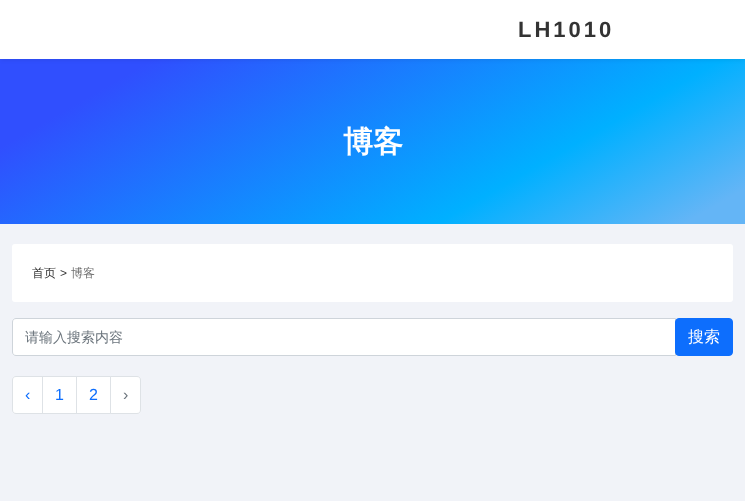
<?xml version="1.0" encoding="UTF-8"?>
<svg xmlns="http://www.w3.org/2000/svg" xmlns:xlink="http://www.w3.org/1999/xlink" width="745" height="501">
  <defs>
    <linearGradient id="g1" gradientUnits="userSpaceOnUse" x1="244" y1="-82" x2="501" y2="365"><stop offset="0.15" stop-color="#304ffe" /><stop offset="0.7" stop-color="#00b0ff" /><stop offset="0.94" stop-color="#64b5f6" /></linearGradient>
  </defs>
  <rect width="100%" height="100%" fill="#f1f3f8" />
  <rect y="59" width="745" height="165" fill="url(#g1)" />
  <rect x="1" y="3" width="743" height="57" fill="#000000" fill-opacity="0.08" filter="blur(2px)" />
  <rect width="745" height="59" fill="#ffffff" />
  <rect x="12" y="244" width="721" height="58" rx="3" fill="#ffffff" />
  <path d="M 16 318.5 h 659.5 v 37 h -659.5 c -2 0 -3.5 -1.5 -3.5 -3.5 v -30 c 0 -2 1.5 -3.5 3.5 -3.5 z" fill="#ffffff" stroke="#ced4da" />
  <rect x="675.5" y="318.5" width="57" height="37" rx="3.5" fill="#0d6efd" stroke="#0d6efd" />
  <path d="M 16 376.5 h 26.5 v 37 h -26.5 c -2 0 -3.5 -1.5 -3.5 -3.5 v -30 c 0 -2 1.5 -3.5 3.5 -3.5 z" fill="#ffffff" stroke="#dee2e6" />
  <rect x="42.5" y="376.5" width="34" height="37" fill="#ffffff" stroke="#dee2e6" />
  <rect x="76.5" y="376.5" width="34" height="37" fill="#ffffff" stroke="#dee2e6" />
  <path d="M 110.5 376.5 h 26.5 c 2 0 3.5 1.5 3.5 3.5 v 30 c 0 2 -1.5 3.5 -3.5 3.5 h -26.5 z" fill="#ffffff" stroke="#dee2e6" />
  <text x="518" y="37" style="font-family: Liberation Sans; font-size: 22px; font-weight: bold; letter-spacing: 3px; fill: #333333">LH1010</text>
  <text x="343" y="152" style="font-family: WenQuanYi Zen Hei; font-size: 30px; font-weight: bold; fill: #ffffff">博客</text>
  <text x="32" y="277" style="font-family: WenQuanYi Zen Hei; font-size: 12px; font-weight: 500; fill: #333333">首页</text>
  <text x="60" y="277" style="font-family: Liberation Sans; font-size: 12px; fill: #333333">&gt;</text>
  <text x="71" y="277" style="font-family: WenQuanYi Zen Hei; font-size: 12px; font-weight: 500; fill: #707070">博客</text>
  <text x="25" y="342" style="font-family: WenQuanYi Zen Hei; font-size: 14px; font-weight: 500; fill: #6c757d">请输入搜索内容</text>
  <text x="688" y="342" style="font-family: WenQuanYi Zen Hei; font-size: 16px; font-weight: 500; fill: #ffffff">搜索</text>
  <text x="25" y="400" style="font-family: Liberation Sans; font-size: 16px; fill: #0d6efd">‹</text>
  <text x="55" y="400" style="font-family: Liberation Sans; font-size: 16px; fill: #0d6efd">1</text>
  <text x="89" y="400" style="font-family: Liberation Sans; font-size: 16px; fill: #0d6efd">2</text>
  <text x="123" y="400" style="font-family: Liberation Sans; font-size: 16px; fill: #6c757d">›</text>
</svg>
